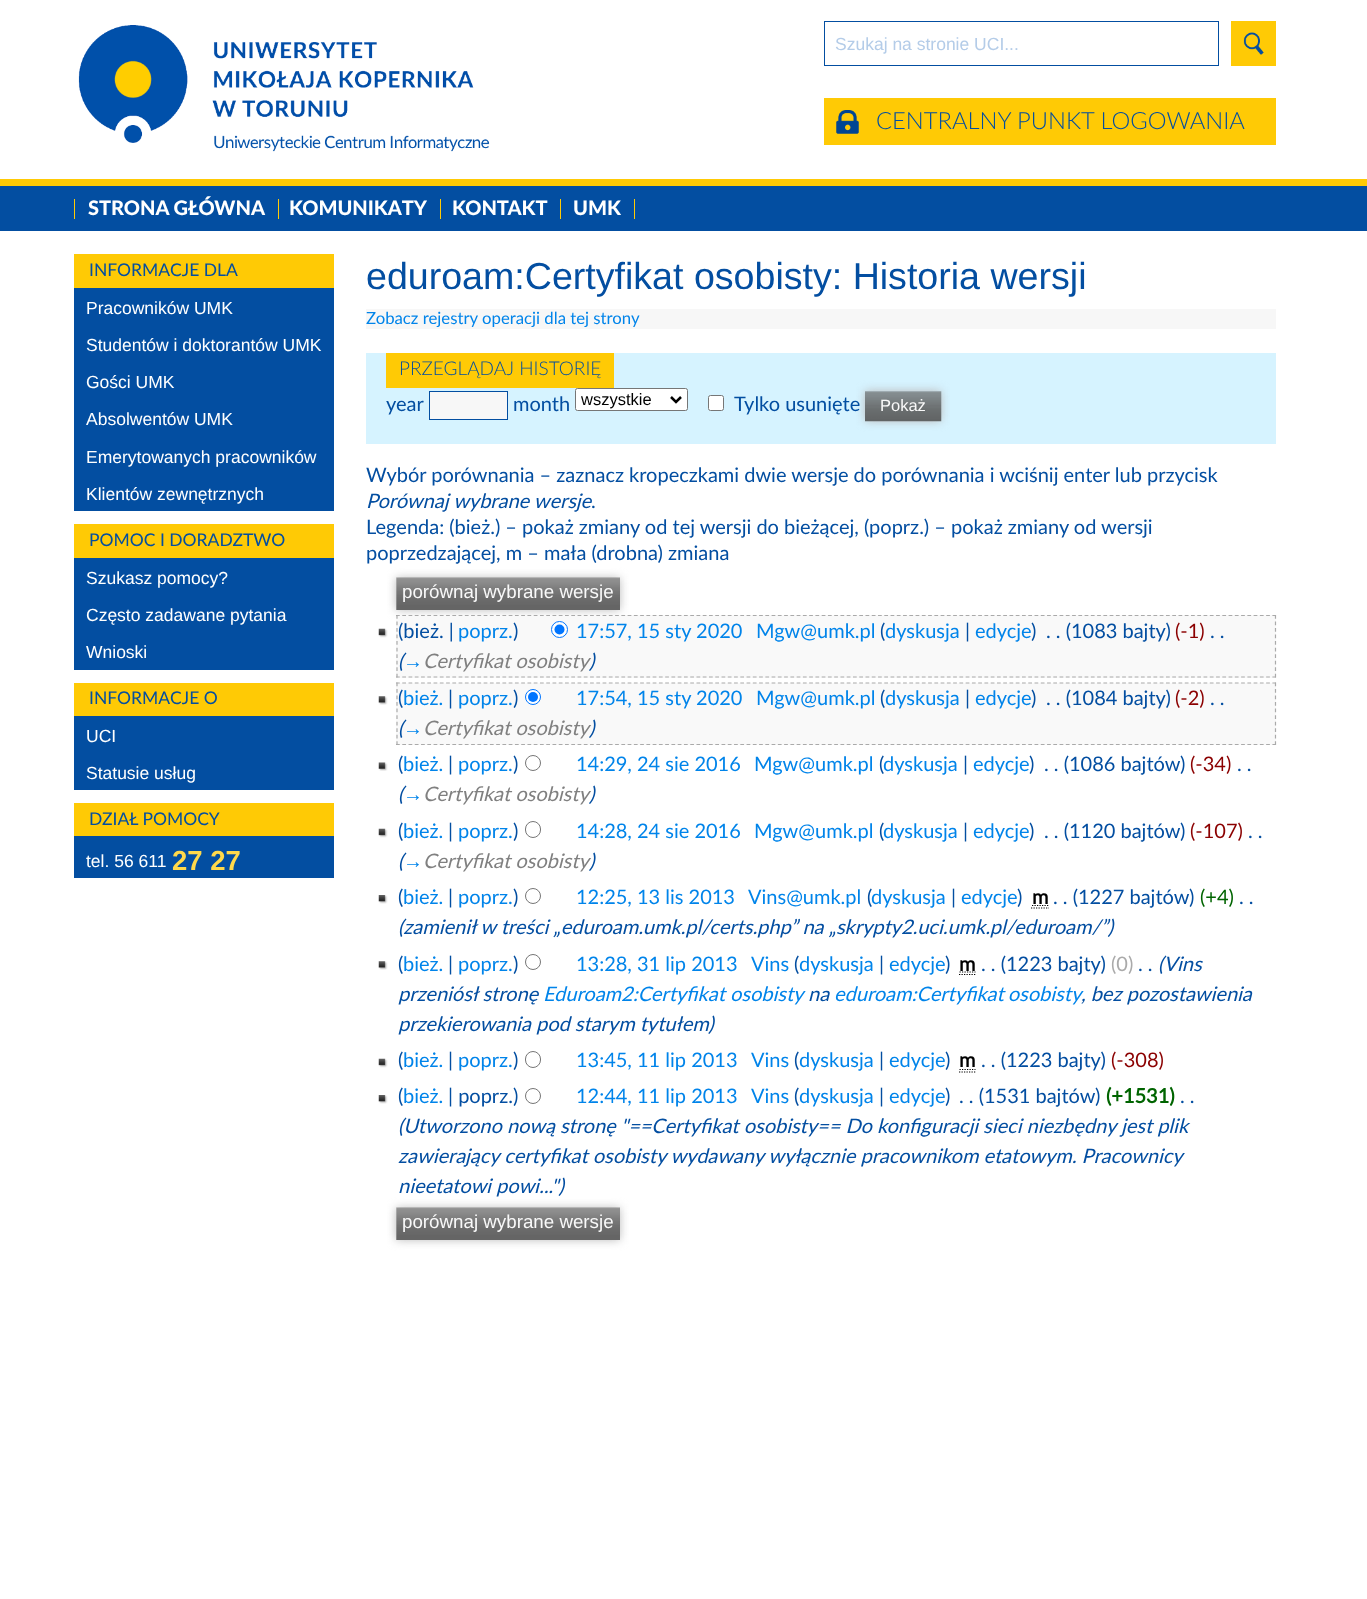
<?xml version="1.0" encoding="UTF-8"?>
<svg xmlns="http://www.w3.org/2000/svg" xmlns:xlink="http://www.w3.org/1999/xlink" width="1367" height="1599">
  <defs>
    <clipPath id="clip1"><path d="M 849 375 h 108 v 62 h -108 z m 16 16 h 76 v 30 h -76 z" clip-rule="evenodd" /></clipPath>
    <clipPath id="clip2"><path d="M 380 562 h 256 v 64 h -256 z m 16 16 h 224 v 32 h -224 z" clip-rule="evenodd" /></clipPath>
    <clipPath id="clip3"><path d="M 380 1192 h 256 v 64 h -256 z m 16 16 h 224 v 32 h -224 z" clip-rule="evenodd" /></clipPath>
  </defs>
  <rect width="100%" height="100%" fill="#ffffff" />
  <image x="78" y="25" width="412" height="127" xlink:href="image1.png" />
  <rect x="824.5" y="21.5" width="394" height="44" fill="none" stroke="#034ea1" />
  <rect x="1231" y="21" width="45" height="45" fill="#ffca05" />
  <image x="1243" y="32" width="21" height="23" xlink:href="image2.png" />
  <rect x="824" y="98" width="452" height="47" fill="#ffca05" />
  <image x="836" y="110" width="23" height="24" xlink:href="image3.png" />
  <rect y="186" width="1367" height="45" fill="#034ea1" />
  <rect y="179" width="1367" height="7" fill="#ffca05" />
  <rect x="74" y="199" width="1" height="20" fill="#ffca05" />
  <rect x="278" y="199" width="1" height="20" fill="#ffca05" />
  <rect x="440" y="199" width="1" height="20" fill="#ffca05" />
  <rect x="560" y="199" width="1" height="20" fill="#ffca05" />
  <rect x="634" y="199" width="1" height="20" fill="#ffca05" />
  <rect x="74" y="288" width="260" height="223" fill="#034ea1" />
  <rect x="74" y="254" width="260" height="34" fill="#ffca05" />
  <rect x="74" y="558" width="260" height="112" fill="#034ea1" />
  <rect x="74" y="524" width="260" height="34" fill="#ffca05" />
  <rect x="74" y="716" width="260" height="74" fill="#034ea1" />
  <rect x="74" y="683" width="260" height="33" fill="#ffca05" />
  <rect x="74" y="836" width="260" height="42" fill="#034ea1" />
  <rect x="74" y="803" width="260" height="33" fill="#ffca05" />
  <rect x="366" y="309" width="910" height="20" fill="#f7f7f7" />
  <rect x="366" y="353" width="910" height="91" fill="#d6f3ff" />
  <rect x="386" y="353" width="228" height="35" fill="#ffca05" />
  <rect x="429.5" y="391.5" width="78" height="28" fill="#f7f7f7" stroke="#034ea1" />
  <rect x="575.5" y="388.5" width="112" height="22" rx="2" fill="#ffffff" stroke="#767676" />
  <path d="M 671 397 l 5 5 l 5 -5" fill="none" stroke="#000000" stroke-width="2.5" />
  <rect x="708.5" y="395.5" width="15" height="15" rx="2" fill="#ffffff" stroke="#767676" />
  <g clip-path="url(#clip1)">
    <rect x="865" y="391" width="76" height="30" fill="#bbbbbb" filter="blur(5px)" />
  </g>
  <image x="865" y="391" width="77" height="31" xlink:href="image4.png" />
  <g clip-path="url(#clip2)">
    <rect x="396" y="578" width="224" height="32" fill="#bbbbbb" filter="blur(5px)" />
  </g>
  <image x="396" y="577" width="224" height="33" xlink:href="image5.png" />
  <rect x="396" y="615" width="880" height="63" fill="#f9f9f9" />
  <path d="M 396 615.5 h 880" fill="none" stroke="#aaaaaa" stroke-width="1.2" stroke-dasharray="3.75 2.51" />
  <path d="M 1275.5 615 v 62.5" fill="none" stroke="#aaaaaa" stroke-width="1.2" stroke-dasharray="3.75 2.78" />
  <path d="M 396 677 h 880" fill="none" stroke="#aaaaaa" stroke-width="1.2" stroke-dasharray="3.75 2.51" />
  <path d="M 397 615 v 62.5" fill="none" stroke="#aaaaaa" stroke-width="1.2" stroke-dasharray="3.75 2.78" />
  <image x="378" y="628" width="10" height="10" xlink:href="image6.png" />
  <circle cx="559.5" cy="629.5" r="8" fill="#ffffff" stroke="#0075ff" />
  <circle cx="559.5" cy="629.5" r="5" fill="#0075ff" />
  <rect x="396" y="683" width="880" height="62" fill="#f9f9f9" />
  <path d="M 396 683 h 880" fill="none" stroke="#aaaaaa" stroke-width="1.2" stroke-dasharray="3.75 2.51" />
  <path d="M 1275.5 682.5 v 62.5" fill="none" stroke="#aaaaaa" stroke-width="1.2" stroke-dasharray="3.75 2.78" />
  <path d="M 396 744.5 h 880" fill="none" stroke="#aaaaaa" stroke-width="1.2" stroke-dasharray="3.75 2.51" />
  <path d="M 397 682.5 v 62.5" fill="none" stroke="#aaaaaa" stroke-width="1.2" stroke-dasharray="3.75 2.78" />
  <image x="378" y="696" width="10" height="9" xlink:href="image7.png" />
  <circle cx="533" cy="697" r="7.5" fill="#ffffff" stroke="#0075ff" />
  <circle cx="533" cy="697" r="5" fill="#0075ff" />
  <image x="378" y="762" width="10" height="9" xlink:href="image8.png" />
  <circle cx="533" cy="763" r="7.5" fill="none" stroke="#767676" />
  <image x="378" y="828" width="10" height="10" xlink:href="image6.png" />
  <rect x="525.5" y="821.5" width="15" height="16" rx="7.5" fill="none" stroke="#767676" />
  <image x="378" y="895" width="10" height="9" xlink:href="image9.png" />
  <circle cx="533" cy="896" r="7.5" fill="none" stroke="#767676" />
  <path d="M 1031 908 h 18 m -17 -2.5 h 16.5" fill="none" stroke="#000000" stroke-width="1.2" stroke-dasharray="1.25 1.25" />
  <image x="378" y="961" width="10" height="9" xlink:href="image7.png" />
  <circle cx="533" cy="962" r="7.5" fill="none" stroke="#767676" />
  <path d="M 959 974.5 h 17 m -16.5 -2.5 h 16" fill="none" stroke="#000000" stroke-width="1.2" stroke-dasharray="1.25 1.25" />
  <image x="378" y="1058" width="10" height="10" xlink:href="image6.png" />
  <rect x="525.5" y="1051.5" width="15" height="16" rx="7.5" fill="none" stroke="#767676" />
  <path d="M 959 1072 h 17 m -16.5 -2.5 h 16" fill="none" stroke="#000000" stroke-width="1.2" stroke-dasharray="1.25 1.25" />
  <image x="378" y="1095" width="10" height="9" xlink:href="image9.png" />
  <circle cx="533" cy="1096" r="7.5" fill="none" stroke="#767676" />
  <g clip-path="url(#clip3)">
    <rect x="396" y="1208" width="224" height="32" fill="#bbbbbb" filter="blur(5px)" />
  </g>
  <image x="396" y="1207" width="224" height="33" xlink:href="image10.png" />
  <text x="835" y="50" style="font-family: Liberation Sans; font-size: 17.5px; fill: #b4cce8">Szukaj na stronie UCI...</text>
  <text x="876" y="129" style="font-family: Lato; font-size: 23.75px; font-weight: 300; fill: #034ea1">CENTRALNY PUNKT LOGOWANIA</text>
  <text x="88" y="215" style="font-family: Lato; font-size: 20px; font-weight: 900; fill: #ffffff">STRONA GŁÓWNA</text>
  <text x="289" y="215" style="font-family: Lato; font-size: 20px; font-weight: 900; fill: #ffffff">KOMUNIKATY</text>
  <text x="452" y="215" style="font-family: Lato; font-size: 20px; font-weight: 900; fill: #ffffff">KONTAKT</text>
  <text x="573" y="215" style="font-family: Lato; font-size: 20px; font-weight: 900; fill: #ffffff">UMK</text>
  <text x="89" y="276" style="font-family: Lato; font-size: 17.5px; fill: #034ea1">INFORMACJE DLA</text>
  <text x="86" y="314" style="font-family: Liberation Sans; font-size: 17.5px; fill: #ffffff">Pracowników UMK</text>
  <text x="86" y="351" style="font-family: Liberation Sans; font-size: 17.5px; fill: #ffffff">Studentów i doktorantów UMK</text>
  <text x="86" y="388" style="font-family: Liberation Sans; font-size: 17.5px; fill: #ffffff">Gości UMK</text>
  <text x="86" y="425" style="font-family: Liberation Sans; font-size: 17.5px; fill: #ffffff">Absolwentów UMK</text>
  <text x="86" y="463" style="font-family: Liberation Sans; font-size: 17.5px; fill: #ffffff">Emerytowanych pracowników</text>
  <text x="86" y="500" style="font-family: Liberation Sans; font-size: 17.5px; fill: #ffffff">Klientów zewnętrznych</text>
  <text x="89" y="546" style="font-family: Lato; font-size: 17.5px; fill: #034ea1">POMOC I DORADZTWO</text>
  <text x="86" y="584" style="font-family: Liberation Sans; font-size: 17.5px; fill: #ffffff">Szukasz pomocy?</text>
  <text x="86" y="621" style="font-family: Liberation Sans; font-size: 17.5px; fill: #ffffff">Często zadawane pytania</text>
  <text x="86" y="658" style="font-family: Liberation Sans; font-size: 17.5px; fill: #ffffff">Wnioski</text>
  <text x="89" y="704" style="font-family: Lato; font-size: 17.5px; fill: #034ea1">INFORMACJE O</text>
  <text x="86" y="742" style="font-family: Liberation Sans; font-size: 17.5px; fill: #ffffff">UCI</text>
  <text x="86" y="779" style="font-family: Liberation Sans; font-size: 17.5px; fill: #ffffff">Statusie usług</text>
  <text x="89" y="825" style="font-family: Lato; font-size: 17.5px; fill: #034ea1">DZIAŁ POMOCY</text>
  <text x="86" y="867" style="font-family: Liberation Sans; font-size: 17.5px; fill: #ffffff">tel. 56 611</text>
  <text x="172" y="870" style="font-family: Liberation Sans; font-size: 27.5px; font-weight: bold; fill: #ffd94b">27 27</text>
  <text x="366" y="289" style="font-family: Liberation Sans; font-size: 37.6px; fill: #034ea1">eduroam:Certyfikat osobisty: Historia wersji</text>
  <text x="366" y="324" style="font-family: Lato; font-size: 16.75px; fill: #0084ea">Zobacz rejestry operacji dla tej strony</text>
  <text x="399" y="375" style="font-family: Lato; font-size: 19px; font-weight: 300; fill: #034ea1">PRZEGLĄDAJ HISTORIĘ</text>
  <text x="386" y="411" style="font-family: Lato; font-size: 20px; fill: #034ea1">year</text>
  <text x="513" y="411" style="font-family: Lato; font-size: 20px; fill: #034ea1">month</text>
  <text x="581" y="405" style="font-family: Liberation Sans; font-size: 16.5px; fill: #000000">wszystkie</text>
  <text x="734" y="411" style="font-family: Lato; font-size: 20px; fill: #034ea1">Tylko usunięte</text>
  <text x="880" y="411" style="font-family: Liberation Sans; font-size: 16.5px; fill: #f9f9f9">Pokaż</text>
  <text x="366" y="482" style="font-family: Lato; font-size: 20px; fill: #034ea1">Wybór porównania – zaznacz kropeczkami dwie wersje do porównania i wciśnij enter lub przycisk</text>
  <text x="366" y="508" style="font-family: Lato; font-size: 20px; font-style: italic; fill: #034ea1">Porównaj wybrane wersje</text>
  <text x="591" y="508" style="font-family: Lato; font-size: 20px; fill: #034ea1">.</text>
  <text x="366" y="534" style="font-family: Lato; font-size: 20px; fill: #034ea1">Legenda: (bież.) – pokaż zmiany od tej wersji do bieżącej, (poprz.) – pokaż zmiany od wersji</text>
  <text x="366" y="560" style="font-family: Lato; font-size: 20px; fill: #034ea1">poprzedzającej, m – mała (drobna) zmiana</text>
  <text x="402" y="598" style="font-family: Liberation Sans; font-size: 18.75px; fill: #f9f9f9">porównaj wybrane wersje</text>
  <text x="398" y="638" style="font-family: Lato; font-size: 20px; fill: #034ea1">(bież. |</text>
  <text x="458" y="638" style="font-family: Lato; font-size: 20px; fill: #0084ea">poprz.</text>
  <text x="513" y="638" style="font-family: Lato; font-size: 20px; fill: #034ea1">)</text>
  <text x="576" y="638" style="font-family: Lato; font-size: 20px; fill: #0084ea">17:57, 15 sty 2020</text>
  <text x="756" y="638" style="font-family: Lato; font-size: 20px; fill: #0084ea">Mgw@umk.pl</text>
  <text x="880" y="638" style="font-family: Lato; font-size: 20px; fill: #034ea1">(</text>
  <text x="885" y="638" style="font-family: Lato; font-size: 20px; fill: #0084ea">dyskusja</text>
  <text x="965" y="638" style="font-family: Lato; font-size: 20px; fill: #034ea1">|</text>
  <text x="975" y="638" style="font-family: Lato; font-size: 20px; fill: #0084ea">edycje</text>
  <text x="1031" y="638" style="font-family: Lato; font-size: 20px; fill: #034ea1">)</text>
  <text x="1046" y="638" style="font-family: Lato; font-size: 20px; fill: #034ea1">. . (1083 bajty)</text>
  <text x="1175" y="638" style="font-family: Lato; font-size: 20px; fill: #8b0000">(-1)</text>
  <text x="1210" y="638" style="font-family: Lato; font-size: 20px; fill: #034ea1">. .</text>
  <text x="398" y="668" style="font-family: Lato; font-size: 20px; font-style: italic; fill: #034ea1">(</text>
  <text x="403" y="668" style="font-family: Liberation Sans; font-size: 20px; font-style: italic; fill: #0084ea">→</text>
  <text x="423" y="668" style="font-family: Lato; font-size: 20px; font-style: italic; fill: #808080">Certyfikat osobisty</text>
  <text x="589" y="668" style="font-family: Lato; font-size: 20px; font-style: italic; fill: #034ea1">)</text>
  <text x="398" y="705" style="font-family: Lato; font-size: 20px; fill: #034ea1">(</text>
  <text x="403" y="705" style="font-family: Lato; font-size: 20px; fill: #0084ea">bież.</text>
  <text x="448" y="705" style="font-family: Lato; font-size: 20px; fill: #034ea1">|</text>
  <text x="458" y="705" style="font-family: Lato; font-size: 20px; fill: #0084ea">poprz.</text>
  <text x="513" y="705" style="font-family: Lato; font-size: 20px; fill: #034ea1">)</text>
  <text x="576" y="705" style="font-family: Lato; font-size: 20px; fill: #0084ea">17:54, 15 sty 2020</text>
  <text x="756" y="705" style="font-family: Lato; font-size: 20px; fill: #0084ea">Mgw@umk.pl</text>
  <text x="880" y="705" style="font-family: Lato; font-size: 20px; fill: #034ea1">(</text>
  <text x="885" y="705" style="font-family: Lato; font-size: 20px; fill: #0084ea">dyskusja</text>
  <text x="965" y="705" style="font-family: Lato; font-size: 20px; fill: #034ea1">|</text>
  <text x="975" y="705" style="font-family: Lato; font-size: 20px; fill: #0084ea">edycje</text>
  <text x="1031" y="705" style="font-family: Lato; font-size: 20px; fill: #034ea1">)</text>
  <text x="1046" y="705" style="font-family: Lato; font-size: 20px; fill: #034ea1">. . (1084 bajty)</text>
  <text x="1175" y="705" style="font-family: Lato; font-size: 20px; fill: #8b0000">(-2)</text>
  <text x="1210" y="705" style="font-family: Lato; font-size: 20px; fill: #034ea1">. .</text>
  <text x="398" y="735" style="font-family: Lato; font-size: 20px; font-style: italic; fill: #034ea1">(</text>
  <text x="403" y="735" style="font-family: Liberation Sans; font-size: 20px; font-style: italic; fill: #0084ea">→</text>
  <text x="423" y="735" style="font-family: Lato; font-size: 20px; font-style: italic; fill: #808080">Certyfikat osobisty</text>
  <text x="589" y="735" style="font-family: Lato; font-size: 20px; font-style: italic; fill: #034ea1">)</text>
  <text x="398" y="771" style="font-family: Lato; font-size: 20px; fill: #034ea1">(</text>
  <text x="403" y="771" style="font-family: Lato; font-size: 20px; fill: #0084ea">bież.</text>
  <text x="448" y="771" style="font-family: Lato; font-size: 20px; fill: #034ea1">|</text>
  <text x="458" y="771" style="font-family: Lato; font-size: 20px; fill: #0084ea">poprz.</text>
  <text x="513" y="771" style="font-family: Lato; font-size: 20px; fill: #034ea1">)</text>
  <text x="576" y="771" style="font-family: Lato; font-size: 20px; fill: #0084ea">14:29, 24 sie 2016</text>
  <text x="754" y="771" style="font-family: Lato; font-size: 20px; fill: #0084ea">Mgw@umk.pl</text>
  <text x="879" y="771" style="font-family: Lato; font-size: 20px; fill: #034ea1">(</text>
  <text x="883" y="771" style="font-family: Lato; font-size: 20px; fill: #0084ea">dyskusja</text>
  <text x="963" y="771" style="font-family: Lato; font-size: 20px; fill: #034ea1">|</text>
  <text x="973" y="771" style="font-family: Lato; font-size: 20px; fill: #0084ea">edycje</text>
  <text x="1029" y="771" style="font-family: Lato; font-size: 20px; fill: #034ea1">)</text>
  <text x="1044" y="771" style="font-family: Lato; font-size: 20px; fill: #034ea1">. . (1086 bajtów)</text>
  <text x="1190" y="771" style="font-family: Lato; font-size: 20px; fill: #8b0000">(-34)</text>
  <text x="1237" y="771" style="font-family: Lato; font-size: 20px; fill: #034ea1">. .</text>
  <text x="398" y="801" style="font-family: Lato; font-size: 20px; font-style: italic; fill: #034ea1">(</text>
  <text x="403" y="801" style="font-family: Liberation Sans; font-size: 20px; font-style: italic; fill: #0084ea">→</text>
  <text x="423" y="801" style="font-family: Lato; font-size: 20px; font-style: italic; fill: #808080">Certyfikat osobisty</text>
  <text x="589" y="801" style="font-family: Lato; font-size: 20px; font-style: italic; fill: #034ea1">)</text>
  <text x="398" y="838" style="font-family: Lato; font-size: 20px; fill: #034ea1">(</text>
  <text x="403" y="838" style="font-family: Lato; font-size: 20px; fill: #0084ea">bież.</text>
  <text x="448" y="838" style="font-family: Lato; font-size: 20px; fill: #034ea1">|</text>
  <text x="458" y="838" style="font-family: Lato; font-size: 20px; fill: #0084ea">poprz.</text>
  <text x="513" y="838" style="font-family: Lato; font-size: 20px; fill: #034ea1">)</text>
  <text x="576" y="838" style="font-family: Lato; font-size: 20px; fill: #0084ea">14:28, 24 sie 2016</text>
  <text x="754" y="838" style="font-family: Lato; font-size: 20px; fill: #0084ea">Mgw@umk.pl</text>
  <text x="879" y="838" style="font-family: Lato; font-size: 20px; fill: #034ea1">(</text>
  <text x="883" y="838" style="font-family: Lato; font-size: 20px; fill: #0084ea">dyskusja</text>
  <text x="963" y="838" style="font-family: Lato; font-size: 20px; fill: #034ea1">|</text>
  <text x="973" y="838" style="font-family: Lato; font-size: 20px; fill: #0084ea">edycje</text>
  <text x="1029" y="838" style="font-family: Lato; font-size: 20px; fill: #034ea1">)</text>
  <text x="1044" y="838" style="font-family: Lato; font-size: 20px; fill: #034ea1">. . (1120 bajtów)</text>
  <text x="1190" y="838" style="font-family: Lato; font-size: 20px; fill: #8b0000">(-107)</text>
  <text x="1248" y="838" style="font-family: Lato; font-size: 20px; fill: #034ea1">. .</text>
  <text x="398" y="868" style="font-family: Lato; font-size: 20px; font-style: italic; fill: #034ea1">(</text>
  <text x="403" y="868" style="font-family: Liberation Sans; font-size: 20px; font-style: italic; fill: #0084ea">→</text>
  <text x="423" y="868" style="font-family: Lato; font-size: 20px; font-style: italic; fill: #808080">Certyfikat osobisty</text>
  <text x="589" y="868" style="font-family: Lato; font-size: 20px; font-style: italic; fill: #034ea1">)</text>
  <text x="398" y="904" style="font-family: Lato; font-size: 20px; fill: #034ea1">(</text>
  <text x="403" y="904" style="font-family: Lato; font-size: 20px; fill: #0084ea">bież.</text>
  <text x="448" y="904" style="font-family: Lato; font-size: 20px; fill: #034ea1">|</text>
  <text x="458" y="904" style="font-family: Lato; font-size: 20px; fill: #0084ea">poprz.</text>
  <text x="513" y="904" style="font-family: Lato; font-size: 20px; fill: #034ea1">)</text>
  <text x="576" y="904" style="font-family: Lato; font-size: 20px; fill: #0084ea">12:25, 13 lis 2013</text>
  <text x="748" y="904" style="font-family: Lato; font-size: 20px; fill: #0084ea">Vins@umk.pl</text>
  <text x="867" y="904" style="font-family: Lato; font-size: 20px; fill: #034ea1">(</text>
  <text x="871" y="904" style="font-family: Lato; font-size: 20px; fill: #0084ea">dyskusja</text>
  <text x="951" y="904" style="font-family: Lato; font-size: 20px; fill: #034ea1">|</text>
  <text x="961" y="904" style="font-family: Lato; font-size: 20px; fill: #0084ea">edycje</text>
  <text x="1017" y="904" style="font-family: Lato; font-size: 20px; fill: #034ea1">)</text>
  <text x="1032" y="904" style="font-family: Lato; font-size: 20px; font-weight: bold; fill: #000000">m</text>
  <text x="1053" y="904" style="font-family: Lato; font-size: 20px; fill: #034ea1">. . (1227 bajtów)</text>
  <text x="1200" y="904" style="font-family: Lato; font-size: 20px; fill: #006400">(+4)</text>
  <text x="1239" y="904" style="font-family: Lato; font-size: 20px; fill: #034ea1">. .</text>
  <text x="398" y="934" style="font-family: Lato; font-size: 20px; font-style: italic; fill: #034ea1">(zamienił w treści „eduroam.umk.pl/certs.php” na „skrypty2.uci.umk.pl/eduroam/”)</text>
  <text x="398" y="971" style="font-family: Lato; font-size: 20px; fill: #034ea1">(</text>
  <text x="403" y="971" style="font-family: Lato; font-size: 20px; fill: #0084ea">bież.</text>
  <text x="448" y="971" style="font-family: Lato; font-size: 20px; fill: #034ea1">|</text>
  <text x="458" y="971" style="font-family: Lato; font-size: 20px; fill: #0084ea">poprz.</text>
  <text x="513" y="971" style="font-family: Lato; font-size: 20px; fill: #034ea1">)</text>
  <text x="576" y="971" style="font-family: Lato; font-size: 20px; fill: #0084ea">13:28, 31 lip 2013</text>
  <text x="751" y="971" style="font-family: Lato; font-size: 20px; fill: #0084ea">Vins</text>
  <text x="794" y="971" style="font-family: Lato; font-size: 20px; fill: #034ea1">(</text>
  <text x="799" y="971" style="font-family: Lato; font-size: 20px; fill: #0084ea">dyskusja</text>
  <text x="879" y="971" style="font-family: Lato; font-size: 20px; fill: #034ea1">|</text>
  <text x="889" y="971" style="font-family: Lato; font-size: 20px; fill: #0084ea">edycje</text>
  <text x="945" y="971" style="font-family: Lato; font-size: 20px; fill: #034ea1">)</text>
  <text x="959" y="971" style="font-family: Lato; font-size: 20px; font-weight: bold; fill: #000000">m</text>
  <text x="981" y="971" style="font-family: Lato; font-size: 20px; fill: #034ea1">. . (1223 bajty)</text>
  <text x="1111" y="971" style="font-family: Lato; font-size: 20px; fill: #aaaaaa">(0)</text>
  <text x="1138" y="971" style="font-family: Lato; font-size: 20px; fill: #034ea1">. .</text>
  <text x="1158" y="971" style="font-family: Lato; font-size: 20px; font-style: italic; fill: #034ea1">(Vins</text>
  <text x="398" y="1001" style="font-family: Lato; font-size: 20px; font-style: italic; fill: #034ea1">przeniósł stronę</text>
  <text x="543" y="1001" style="font-family: Lato; font-size: 20px; font-style: italic; fill: #0084ea">Eduroam2:Certyfikat osobisty</text>
  <text x="808" y="1001" style="font-family: Lato; font-size: 20px; font-style: italic; fill: #034ea1">na</text>
  <text x="834" y="1001" word-spacing="-1" style="font-family: Lato; font-size: 20px; font-style: italic; fill: #0084ea">eduroam:Certyfikat osobisty</text>
  <text x="1081" y="1001" style="font-family: Lato; font-size: 20px; font-style: italic; fill: #034ea1">, bez pozostawienia</text>
  <text x="398" y="1031" style="font-family: Lato; font-size: 20px; font-style: italic; fill: #034ea1">przekierowania pod starym tytułem)</text>
  <text x="398" y="1067" style="font-family: Lato; font-size: 20px; fill: #034ea1">(</text>
  <text x="403" y="1067" style="font-family: Lato; font-size: 20px; fill: #0084ea">bież.</text>
  <text x="448" y="1067" style="font-family: Lato; font-size: 20px; fill: #034ea1">|</text>
  <text x="458" y="1067" style="font-family: Lato; font-size: 20px; fill: #0084ea">poprz.</text>
  <text x="513" y="1067" style="font-family: Lato; font-size: 20px; fill: #034ea1">)</text>
  <text x="576" y="1067" style="font-family: Lato; font-size: 20px; fill: #0084ea">13:45, 11 lip 2013</text>
  <text x="751" y="1067" style="font-family: Lato; font-size: 20px; fill: #0084ea">Vins</text>
  <text x="794" y="1067" style="font-family: Lato; font-size: 20px; fill: #034ea1">(</text>
  <text x="799" y="1067" style="font-family: Lato; font-size: 20px; fill: #0084ea">dyskusja</text>
  <text x="879" y="1067" style="font-family: Lato; font-size: 20px; fill: #034ea1">|</text>
  <text x="889" y="1067" style="font-family: Lato; font-size: 20px; fill: #0084ea">edycje</text>
  <text x="945" y="1067" style="font-family: Lato; font-size: 20px; fill: #034ea1">)</text>
  <text x="959" y="1067" style="font-family: Lato; font-size: 20px; font-weight: bold; fill: #000000">m</text>
  <text x="981" y="1067" style="font-family: Lato; font-size: 20px; fill: #034ea1">. . (1223 bajty)</text>
  <text x="1111" y="1067" style="font-family: Lato; font-size: 20px; fill: #8b0000">(-308)</text>
  <text x="398" y="1103" style="font-family: Lato; font-size: 20px; fill: #034ea1">(</text>
  <text x="403" y="1103" style="font-family: Lato; font-size: 20px; fill: #0084ea">bież.</text>
  <text x="448" y="1103" style="font-family: Lato; font-size: 20px; fill: #034ea1">| poprz.)</text>
  <text x="576" y="1103" style="font-family: Lato; font-size: 20px; fill: #0084ea">12:44, 11 lip 2013</text>
  <text x="751" y="1103" style="font-family: Lato; font-size: 20px; fill: #0084ea">Vins</text>
  <text x="794" y="1103" style="font-family: Lato; font-size: 20px; fill: #034ea1">(</text>
  <text x="799" y="1103" style="font-family: Lato; font-size: 20px; fill: #0084ea">dyskusja</text>
  <text x="879" y="1103" style="font-family: Lato; font-size: 20px; fill: #034ea1">|</text>
  <text x="889" y="1103" style="font-family: Lato; font-size: 20px; fill: #0084ea">edycje</text>
  <text x="945" y="1103" style="font-family: Lato; font-size: 20px; fill: #034ea1">)</text>
  <text x="959" y="1103" style="font-family: Lato; font-size: 20px; fill: #034ea1">. . (1531 bajtów)</text>
  <text x="1106" y="1103" style="font-family: Lato; font-size: 20px; font-weight: bold; fill: #006400">(+1531)</text>
  <text x="1180" y="1103" style="font-family: Lato; font-size: 20px; fill: #034ea1">. .</text>
  <text x="398" y="1133" style="font-family: Lato; font-size: 20px; font-style: italic; fill: #034ea1">(Utworzono nową stronę "==Certyfikat osobisty== Do konfiguracji sieci niezbędny jest plik</text>
  <text x="398" y="1163" style="font-family: Lato; font-size: 20px; font-style: italic; fill: #034ea1">zawierający certyfikat osobisty wydawany wyłącznie pracownikom etatowym. Pracownicy</text>
  <text x="398" y="1193" style="font-family: Lato; font-size: 20px; font-style: italic; fill: #034ea1">nieetatowi powi...")</text>
  <text x="402" y="1228" style="font-family: Liberation Sans; font-size: 18.75px; fill: #f9f9f9">porównaj wybrane wersje</text>
</svg>
